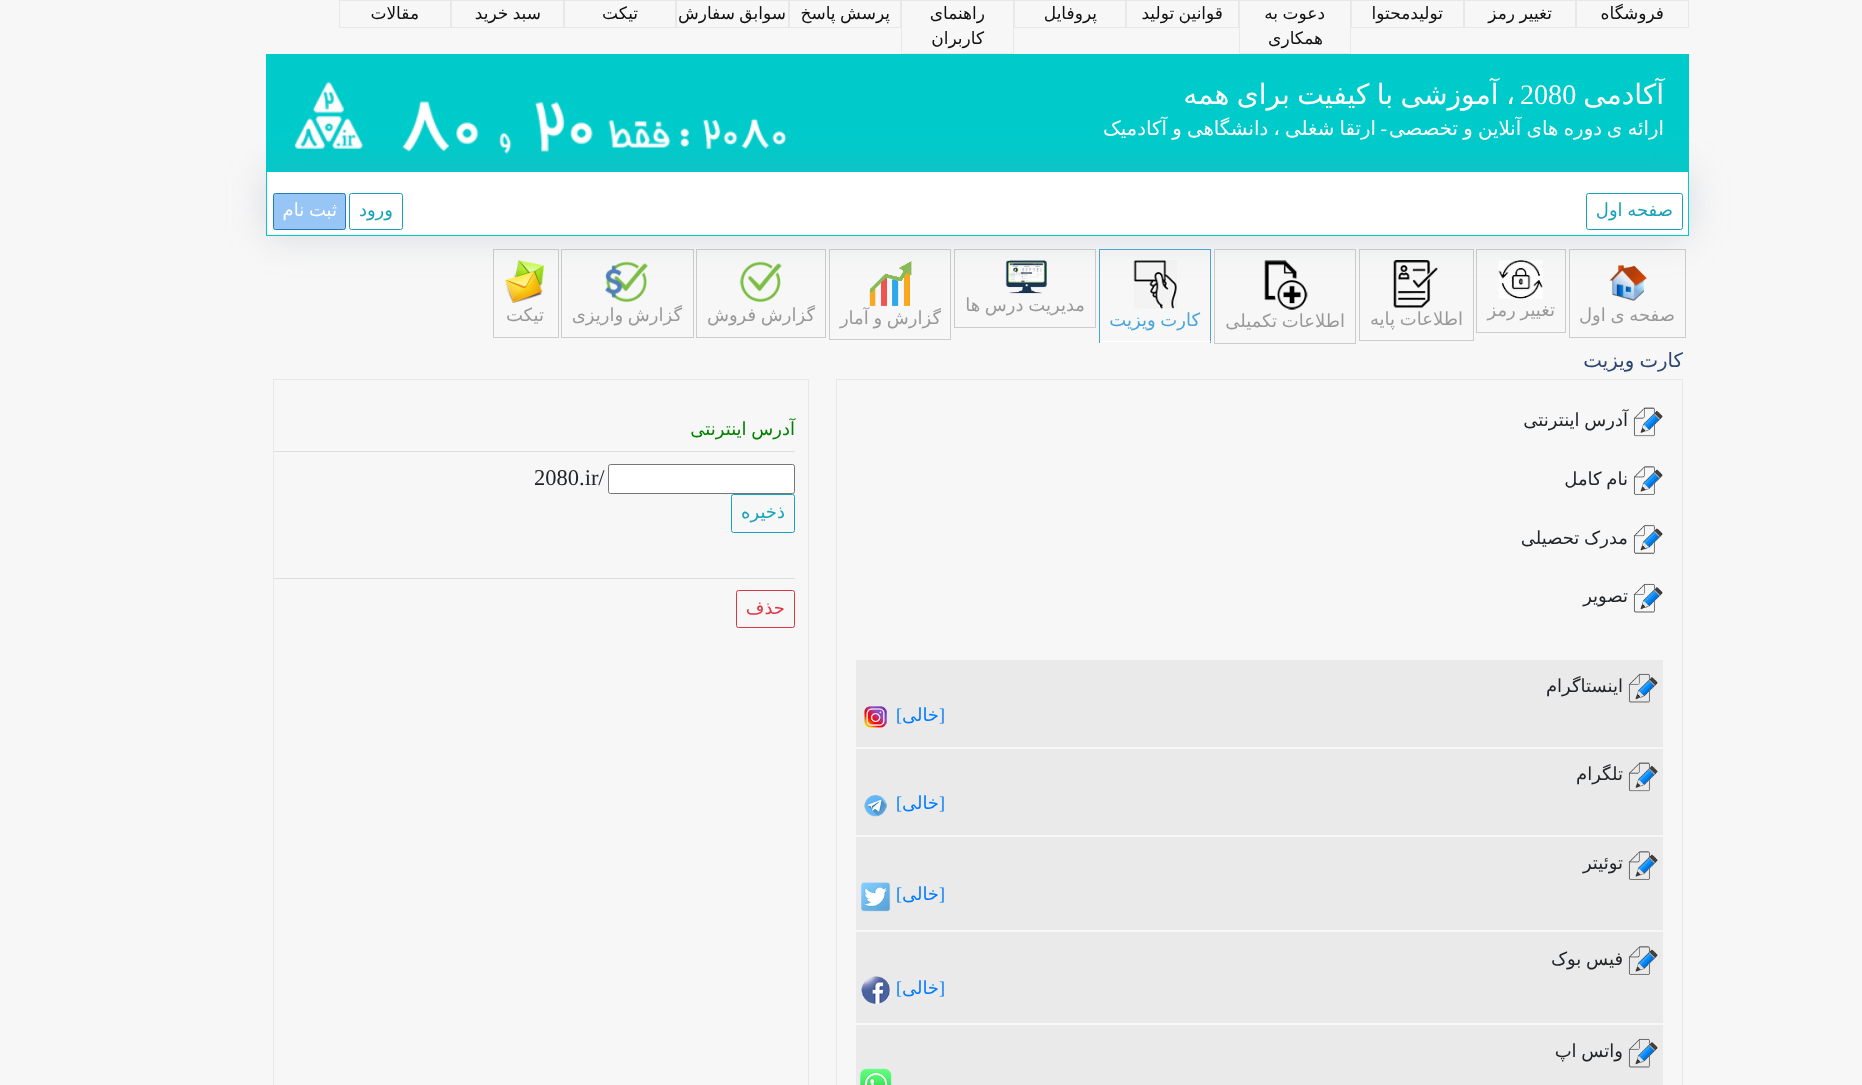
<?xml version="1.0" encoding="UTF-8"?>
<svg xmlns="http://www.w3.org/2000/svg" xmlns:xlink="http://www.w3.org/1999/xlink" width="1862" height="1085">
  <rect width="100%" height="100%" fill="#f7f7f7" />
  <rect x="1576.5" y="0.5" width="112" height="27" fill="none" stroke="#e8e8e8" />
  <rect x="1464.5" y="0.5" width="111" height="27" fill="none" stroke="#e8e8e8" />
  <rect x="1351.5" y="0.5" width="112" height="27" fill="none" stroke="#e8e8e8" />
  <rect x="1239.5" y="0.5" width="111" height="53" fill="none" stroke="#e8e8e8" />
  <rect x="1126.5" y="0.5" width="112" height="27" fill="none" stroke="#e8e8e8" />
  <rect x="1014.5" y="0.5" width="111" height="27" fill="none" stroke="#e8e8e8" />
  <rect x="901.5" y="0.5" width="112" height="53" fill="none" stroke="#e8e8e8" />
  <rect x="789.5" y="0.5" width="111" height="27" fill="none" stroke="#e8e8e8" />
  <rect x="676.5" y="0.5" width="112" height="27" fill="none" stroke="#e8e8e8" />
  <rect x="564.5" y="0.5" width="111" height="27" fill="none" stroke="#e8e8e8" />
  <rect x="451.5" y="0.5" width="112" height="27" fill="none" stroke="#e8e8e8" />
  <rect x="339.5" y="0.5" width="111" height="27" fill="none" stroke="#e8e8e8" />
  <rect x="266" y="54" width="1423" height="117" fill="#00cbcb" />
  <image x="294" y="82" width="493" height="72" xlink:href="image1.png" />
  <rect x="1569.5" y="249.5" width="116" height="88" fill="none" stroke="#cccccc" />
  <image x="1609" y="265" width="38" height="36" xlink:href="image2.png" />
  <rect x="1476.5" y="249.5" width="89" height="83" fill="none" stroke="#cccccc" />
  <image x="1498" y="260" width="45" height="39" xlink:href="image3.png" />
  <rect x="1359.5" y="249.5" width="114" height="91" fill="none" stroke="#cccccc" />
  <image x="1393" y="260" width="45" height="48" xlink:href="image4.png" />
  <rect x="1214.5" y="249.5" width="141" height="94" fill="none" stroke="#cccccc" />
  <image x="1264" y="260" width="44" height="50" xlink:href="image5.png" />
  <rect x="1099" y="249" width="112" height="1" fill="#49a4d9" />
  <rect x="1210" y="249" width="1" height="94" fill="#49a4d9" />
  <rect x="1099" y="249" width="1" height="94" fill="#49a4d9" />
  <image x="1133" y="260" width="44" height="49" xlink:href="image6.png" />
  <rect x="954.5" y="249.5" width="141" height="78" fill="none" stroke="#cccccc" />
  <image x="1005" y="260" width="42" height="34" xlink:href="image7.png" />
  <rect x="829.5" y="249.5" width="121" height="90" fill="none" stroke="#cccccc" />
  <image x="869" y="261" width="43" height="45" xlink:href="image8.png" />
  <rect x="696.5" y="249.5" width="129" height="88" fill="none" stroke="#cccccc" />
  <image x="739" y="261" width="43" height="41" xlink:href="image9.png" />
  <rect x="561.5" y="249.5" width="132" height="88" fill="none" stroke="#cccccc" />
  <image x="605" y="261" width="43" height="41" xlink:href="image10.png" />
  <rect x="493.5" y="249.5" width="65" height="88" fill="none" stroke="#cccccc" />
  <image x="505" y="260" width="39" height="43" xlink:href="image11.png" />
  <rect x="266" y="171" width="1423" height="65" fill="#7f89a1" fill-opacity="0.25" filter="blur(19px)" />
  <rect x="266.5" y="171.5" width="1422" height="64" fill="#ffffff" stroke="#00cbcb" />
  <rect x="1586.5" y="193.5" width="96" height="36" rx="2" fill="none" stroke="#17a2b8" />
  <rect x="349.5" y="193.5" width="53" height="36" rx="2" fill="none" stroke="#17a2b8" />
  <rect x="273.5" y="193.5" width="72" height="36" rx="2" fill="#96c5f6" stroke="#227ab6" />
  <rect x="1210" y="341" width="1" height="1" fill="#cccccc" />
  <rect x="1100" y="341" width="110" height="1" fill="#ffffff" />
  <rect x="836.5" y="379.5" width="846" height="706" fill="none" stroke="#e8e8e8" />
  <image x="1633" y="407" width="30" height="30" xlink:href="image12.png" />
  <image x="1633" y="466" width="30" height="29" xlink:href="image13.png" />
  <image x="1633" y="525" width="30" height="29" xlink:href="image14.png" />
  <image x="1633" y="583" width="30" height="30" xlink:href="image15.png" />
  <rect x="856" y="660" width="807" height="87" fill="#eaeaea" />
  <image x="1628" y="673" width="30" height="30" xlink:href="image16.png" />
  <image x="864" y="706" width="23" height="22" xlink:href="image17.png" />
  <rect x="856" y="749" width="807" height="86" fill="#eaeaea" />
  <image x="1628" y="762" width="30" height="30" xlink:href="image18.png" />
  <image x="864" y="795" width="23" height="22" xlink:href="image19.png" />
  <rect x="856" y="837" width="807" height="93" fill="#eaeaea" />
  <image x="1628" y="851" width="30" height="29" xlink:href="image20.png" />
  <image x="861" y="882" width="30" height="30" xlink:href="image21.png" />
  <rect x="856" y="932" width="807" height="91" fill="#eaeaea" />
  <image x="1628" y="946" width="30" height="29" xlink:href="image20.png" />
  <image x="861" y="976" width="29" height="28" xlink:href="image22.png" />
  <rect x="856" y="1025" width="807" height="60" fill="#eaeaea" />
  <image x="1628" y="1038" width="30" height="30" xlink:href="image16.png" />
  <image x="860" y="1068" width="32" height="17" xlink:href="image23.png" />
  <rect x="273.5" y="379.5" width="535" height="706" fill="none" stroke="#e8e8e8" />
  <rect x="274" y="451" width="521" height="1" fill="#dedede" />
  <rect x="608.5" y="464.5" width="186" height="29" rx="2" fill="#ffffff" stroke="#767676" />
  <rect x="731.5" y="494.5" width="63" height="38" rx="2" fill="none" stroke="#17a2b8" />
  <rect x="274" y="578" width="521" height="1" fill="#dedede" />
  <rect x="736.5" y="590.5" width="58" height="37" rx="2" fill="none" stroke="#dc3545" />
  <text x="1664" y="19" style="font-family: DejaVu Sans; font-size: 17px; direction: rtl; fill: #111111">فروشگاه</text>
  <text x="1552" y="19" word-spacing="-1" style="font-family: DejaVu Sans; font-size: 17px; direction: rtl; fill: #111111">تغییر رمز</text>
  <text x="1443" y="19" style="font-family: DejaVu Sans; font-size: 17px; direction: rtl; fill: #111111">تولیدمحتوا</text>
  <text x="1325" y="19" word-spacing="-1" style="font-family: DejaVu Sans; font-size: 17px; direction: rtl; fill: #111111">دعوت به</text>
  <text x="1323" y="44" style="font-family: DejaVu Sans; font-size: 17px; direction: rtl; fill: #111111">همکاری</text>
  <text x="1223" y="19" word-spacing="-1" style="font-family: DejaVu Sans; font-size: 17px; direction: rtl; fill: #111111">قوانین تولید</text>
  <text x="1097" y="19" style="font-family: DejaVu Sans; font-size: 17px; direction: rtl; fill: #111111">پروفایل</text>
  <text x="985" y="19" style="font-family: DejaVu Sans; font-size: 17px; direction: rtl; fill: #111111">راهنمای</text>
  <text x="984" y="44" style="font-family: DejaVu Sans; font-size: 17px; direction: rtl; fill: #111111">کاربران</text>
  <text x="890" y="19" word-spacing="-1" style="font-family: DejaVu Sans; font-size: 17px; direction: rtl; fill: #111111">پرسش پاسخ</text>
  <text x="786" y="19" word-spacing="-1" style="font-family: DejaVu Sans; font-size: 17px; direction: rtl; fill: #111111">سوابق سفارش</text>
  <text x="638" y="19" style="font-family: DejaVu Sans; font-size: 17px; direction: rtl; fill: #111111">تیکت</text>
  <text x="541" y="19" word-spacing="-1" style="font-family: DejaVu Sans; font-size: 17px; direction: rtl; fill: #111111">سبد خرید</text>
  <text x="419" y="19" style="font-family: DejaVu Sans; font-size: 17px; direction: rtl; fill: #111111">مقالات</text>
  <text x="1664" y="104" style="font-family: DejaVu Sans; font-size: 28.1px; direction: rtl; fill: #ffffff">آکادمی</text>
  <text x="1520" y="104" style="font-family: Liberation Serif; font-size: 28.1px; fill: #ffffff">2080</text>
  <text x="1515" y="104" word-spacing="-1.5" style="font-family: DejaVu Sans; font-size: 28.1px; direction: rtl; fill: #ffffff">، آموزشی با کیفیت برای همه</text>
  <text x="1664" y="135" word-spacing="-1" style="font-family: DejaVu Sans; font-size: 19.75px; direction: rtl; fill: #ffffff">ارائه ی</text>
  <text x="1602" y="135" word-spacing="-1" style="font-family: DejaVu Sans; font-size: 19.75px; direction: rtl; fill: #ffffff">دوره های آنلاین و تخصصی</text>
  <text x="1387" y="135" style="font-family: Liberation Serif; font-size: 19.75px; direction: rtl; fill: #ffffff">-</text>
  <text x="1376" y="135" word-spacing="-1" style="font-family: DejaVu Sans; font-size: 19.75px; direction: rtl; fill: #ffffff">ارتقا شغلی ، دانشگاهی و آکادمیک</text>
  <text x="1673" y="216" word-spacing="-1" style="font-family: DejaVu Sans; font-size: 18px; direction: rtl; fill: #17a2b8">صفحه اول</text>
  <text x="393" y="216" style="font-family: DejaVu Sans; font-size: 18px; direction: rtl; fill: #17a2b8">ورود</text>
  <text x="337" y="216" word-spacing="-1" style="font-family: DejaVu Sans; font-size: 18px; direction: rtl; fill: #ffffff">ثبت نام</text>
  <text x="1675" y="321" word-spacing="-1" style="font-family: DejaVu Sans; font-size: 18px; direction: rtl; fill: #999999">صفحه ی اول</text>
  <text x="1555" y="316" word-spacing="-1" style="font-family: DejaVu Sans; font-size: 18px; direction: rtl; fill: #999999">تغییر رمز</text>
  <text x="1463" y="325" word-spacing="-1" style="font-family: DejaVu Sans; font-size: 18px; direction: rtl; fill: #999999">اطلاعات پایه</text>
  <text x="1345" y="327" word-spacing="-1" style="font-family: DejaVu Sans; font-size: 18px; direction: rtl; fill: #999999">اطلاعات تکمیلی</text>
  <text x="1200" y="326" word-spacing="-1" style="font-family: DejaVu Sans; font-size: 18px; direction: rtl; fill: #49a4d9">کارت ویزیت</text>
  <text x="1085" y="311" word-spacing="-1" style="font-family: DejaVu Sans; font-size: 18px; direction: rtl; fill: #999999">مدیریت درس ها</text>
  <text x="941" y="324" word-spacing="-1" style="font-family: DejaVu Sans; font-size: 18px; direction: rtl; fill: #999999">گزارش و آمار</text>
  <text x="815" y="321" word-spacing="-1" style="font-family: DejaVu Sans; font-size: 18px; direction: rtl; fill: #999999">گزارش فروش</text>
  <text x="682" y="321" word-spacing="-1" style="font-family: DejaVu Sans; font-size: 18px; direction: rtl; fill: #999999">گزارش واریزی</text>
  <text x="544" y="321" style="font-family: DejaVu Sans; font-size: 18px; direction: rtl; fill: #999999">تیکت</text>
  <text x="1683" y="367" word-spacing="-1" style="font-family: DejaVu Sans; font-size: 19.75px; direction: rtl; fill: #2e4770">کارت ویزیت</text>
  <text x="1628" y="426" word-spacing="-1" style="font-family: DejaVu Sans; font-size: 18px; direction: rtl; fill: #212529">آدرس اینترنتی</text>
  <text x="1628" y="485" word-spacing="-1" style="font-family: DejaVu Sans; font-size: 18px; direction: rtl; fill: #212529">نام کامل</text>
  <text x="1628" y="544" word-spacing="-1" style="font-family: DejaVu Sans; font-size: 18px; direction: rtl; fill: #212529">مدرک تحصیلی</text>
  <text x="1628" y="602" style="font-family: DejaVu Sans; font-size: 18px; direction: rtl; fill: #212529">تصویر</text>
  <text x="1623" y="692" style="font-family: DejaVu Sans; font-size: 18px; direction: rtl; fill: #212529">اینستاگرام</text>
  <text x="939" y="721" style="font-family: Liberation Serif; font-size: 18px; fill: #007bff">]</text>
  <text x="939" y="721" style="font-family: DejaVu Sans; font-size: 18px; direction: rtl; fill: #007bff">خالی</text>
  <text x="896" y="721" style="font-family: Liberation Serif; font-size: 18px; fill: #007bff">[</text>
  <text x="1623" y="780" style="font-family: DejaVu Sans; font-size: 18px; direction: rtl; fill: #212529">تلگرام</text>
  <text x="939" y="809" style="font-family: Liberation Serif; font-size: 18px; fill: #007bff">]</text>
  <text x="939" y="809" style="font-family: DejaVu Sans; font-size: 18px; direction: rtl; fill: #007bff">خالی</text>
  <text x="896" y="809" style="font-family: Liberation Serif; font-size: 18px; fill: #007bff">[</text>
  <text x="1623" y="869" style="font-family: DejaVu Sans; font-size: 18px; direction: rtl; fill: #212529">توئیتر</text>
  <text x="939" y="900" style="font-family: Liberation Serif; font-size: 18px; fill: #007bff">]</text>
  <text x="939" y="900" style="font-family: DejaVu Sans; font-size: 18px; direction: rtl; fill: #007bff">خالی</text>
  <text x="896" y="900" style="font-family: Liberation Serif; font-size: 18px; fill: #007bff">[</text>
  <text x="1623" y="965" word-spacing="-1" style="font-family: DejaVu Sans; font-size: 18px; direction: rtl; fill: #212529">فیس بوک</text>
  <text x="939" y="994" style="font-family: Liberation Serif; font-size: 18px; fill: #007bff">]</text>
  <text x="939" y="994" style="font-family: DejaVu Sans; font-size: 18px; direction: rtl; fill: #007bff">خالی</text>
  <text x="896" y="994" style="font-family: Liberation Serif; font-size: 18px; fill: #007bff">[</text>
  <text x="1623" y="1057" word-spacing="-1" style="font-family: DejaVu Sans; font-size: 18px; direction: rtl; fill: #212529">واتس اپ</text>
  <text x="795" y="435" word-spacing="-1" style="font-family: DejaVu Sans; font-size: 18px; direction: rtl; fill: #008000">آدرس اینترنتی</text>
  <text x="534" y="485" style="font-family: Liberation Serif; font-size: 22.5px; fill: #212529">2080.ir/</text>
  <text x="785" y="518" style="font-family: DejaVu Sans; font-size: 18px; direction: rtl; fill: #17a2b8">ذخیره</text>
  <text x="785" y="614" style="font-family: DejaVu Sans; font-size: 18px; direction: rtl; fill: #dc3545">حذف</text>
</svg>
